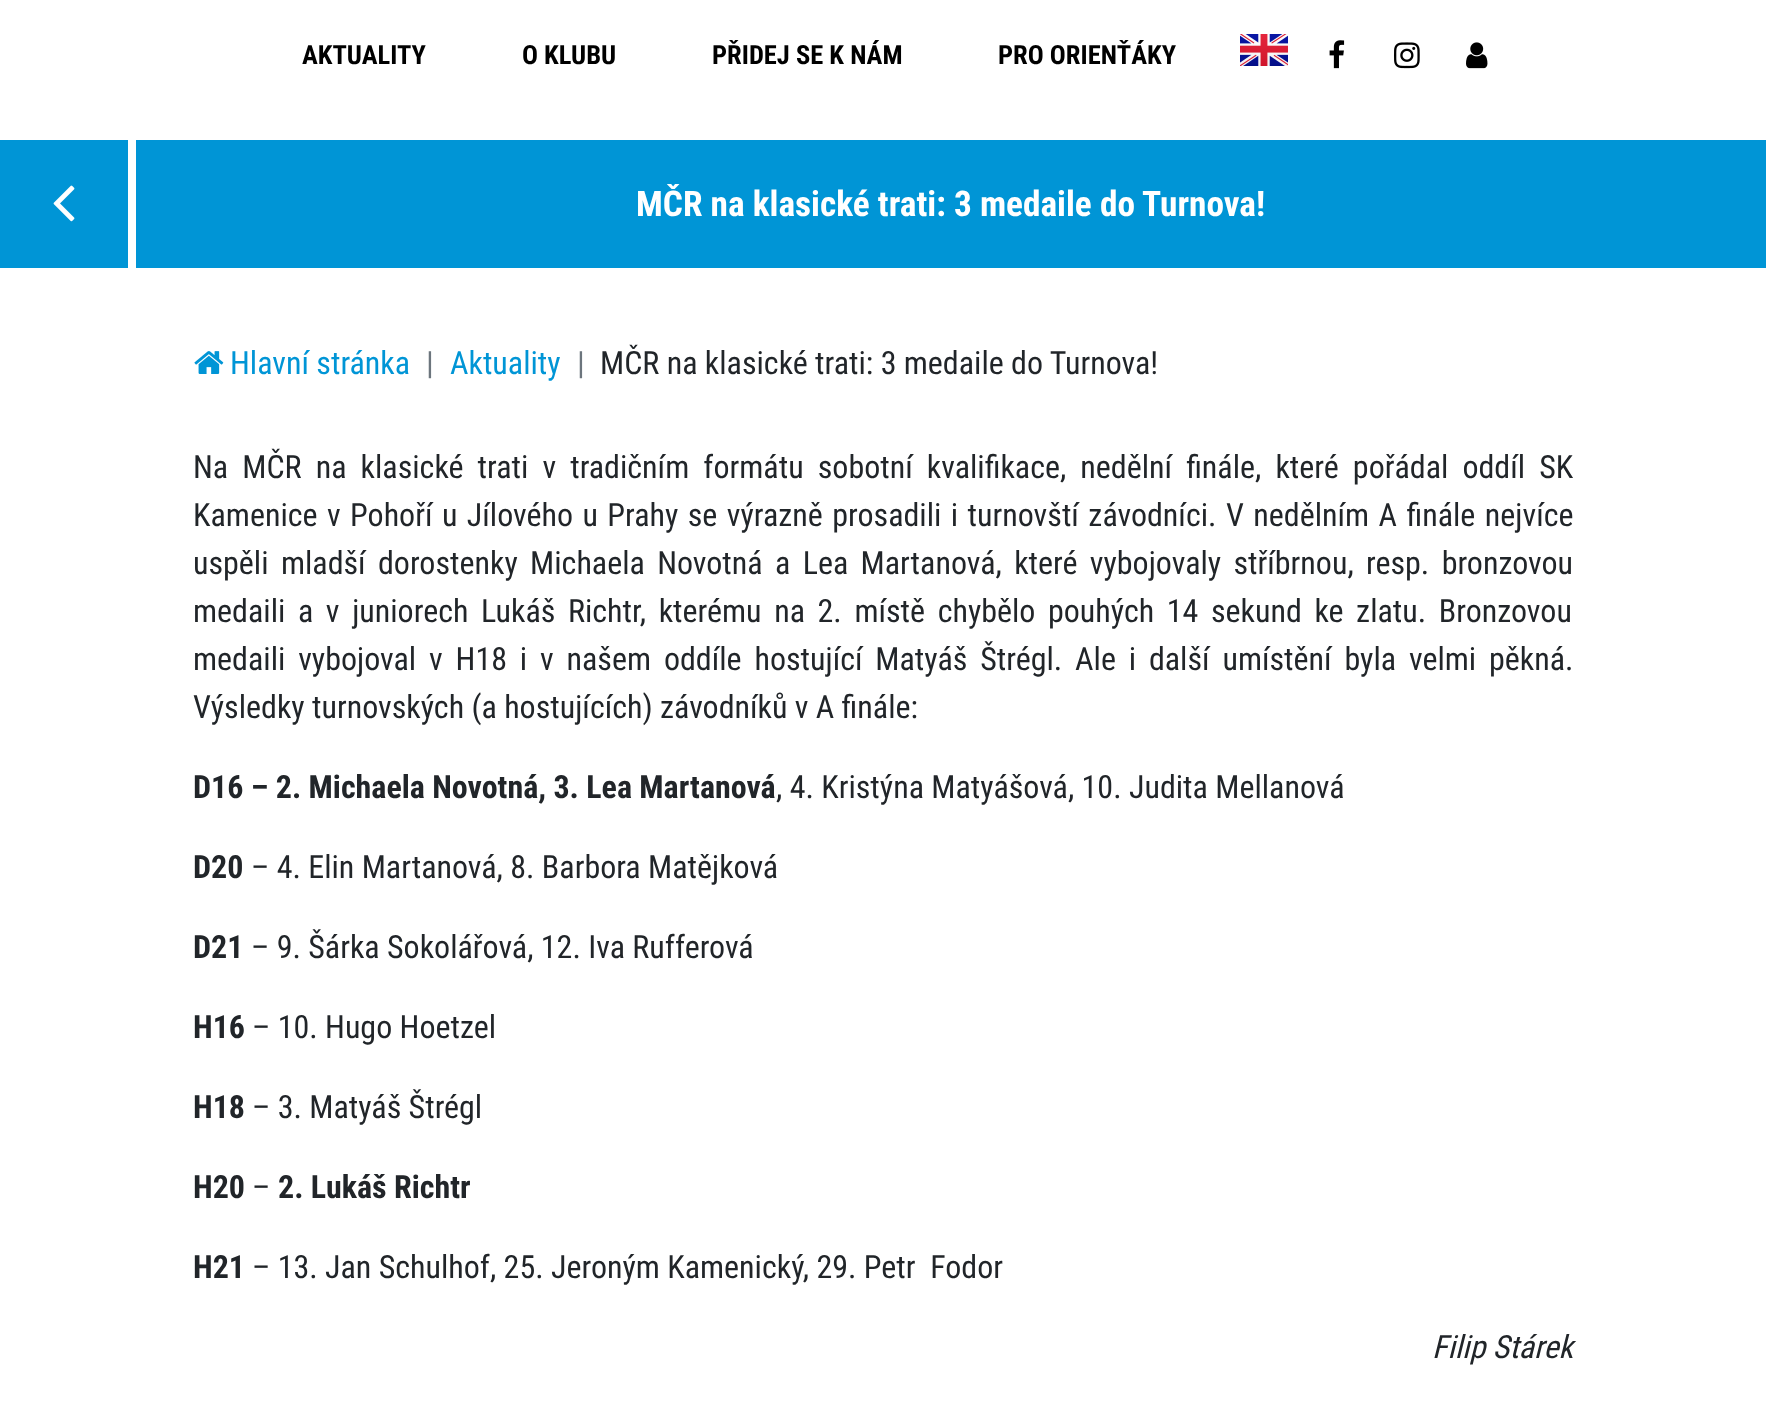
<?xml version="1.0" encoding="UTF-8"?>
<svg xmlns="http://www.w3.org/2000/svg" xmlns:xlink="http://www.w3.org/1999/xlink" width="1766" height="1402">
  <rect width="100%" height="100%" fill="#ffffff" />
  <image x="1240" y="34" width="48" height="32" xlink:href="image1.png" />
  <image x="1329" y="40" width="16" height="29" xlink:href="image2.png" />
  <image x="1394" y="42" width="26" height="27" xlink:href="image3.png" />
  <image x="1466" y="42" width="22" height="27" xlink:href="image4.png" />
  <rect y="140" width="128" height="128" fill="#0095d6" />
  <image x="53" y="185" width="22" height="37" xlink:href="image5.png" />
  <rect x="136" y="140" width="1630" height="128" fill="#0095d6" />
  <image x="194" y="351" width="30" height="23" xlink:href="image6.png" />
  <text x="302" y="64" style="font-family: Roboto Condensed; font-size: 26.5px; font-weight: bold; fill: #000000">AKTUALITY</text>
  <text x="522" y="64" style="font-family: Roboto Condensed; font-size: 26.5px; font-weight: bold; fill: #000000">O KLUBU</text>
  <text x="712" y="64" style="font-family: Roboto Condensed; font-size: 26.5px; font-weight: bold; fill: #000000">PŘIDEJ SE K NÁM</text>
  <text x="998" y="64" style="font-family: Roboto Condensed; font-size: 26.5px; font-weight: bold; fill: #000000">PRO ORIENŤÁKY</text>
  <text x="636" y="216" style="font-family: Roboto Condensed; font-size: 35.3px; font-weight: bold; fill: #ffffff">MČR na klasické trati: 3 medaile do Turnova!</text>
  <text x="230" y="374" style="font-family: Roboto Condensed; font-size: 32px; fill: #0095d6">Hlavní stránka</text>
  <text x="426" y="374" style="font-family: Roboto Condensed; font-size: 32px; fill: #6c757d">|</text>
  <text x="450" y="374" style="font-family: Roboto Condensed; font-size: 32px; fill: #0095d6">Aktuality</text>
  <text x="577" y="374" style="font-family: Roboto Condensed; font-size: 32px; fill: #6c757d">|</text>
  <text x="600" y="374" style="font-family: Roboto Condensed; font-size: 32px; fill: #212529">MČR na klasické trati: 3 medaile do Turnova!</text>
  <text x="193" y="478" word-spacing="6.75" style="font-family: Roboto Condensed; font-size: 32px; fill: #212529">Na MČR na klasické trati v tradičním formátu sobotní kvalifikace, nedělní finále, které pořádal oddíl SK</text>
  <text x="193" y="526" word-spacing="2.1" style="font-family: Roboto Condensed; font-size: 32px; fill: #212529">Kamenice v Pohoří u Jílového u Prahy se výrazně prosadili i turnovští závodníci. V nedělním A finále nejvíce</text>
  <text x="193" y="574" word-spacing="5" style="font-family: Roboto Condensed; font-size: 32px; fill: #212529">uspěli mladší dorostenky Michaela Novotná a Lea Martanová, které vybojovaly stříbrnou, resp. bronzovou</text>
  <text x="193" y="622" word-spacing="5.25" style="font-family: Roboto Condensed; font-size: 32px; fill: #212529">medaili a v juniorech Lukáš Richtr, kterému na 2. místě chybělo pouhých 14 sekund ke zlatu. Bronzovou</text>
  <text x="193" y="670" word-spacing="5.5" style="font-family: Roboto Condensed; font-size: 32px; fill: #212529">medaili vybojoval v H18 i v našem oddíle hostující Matyáš Štrégl. Ale i další umístění byla velmi pěkná.</text>
  <text x="193" y="718" style="font-family: Roboto Condensed; font-size: 32px; fill: #212529">Výsledky turnovských (a hostujících) závodníků v A finále:</text>
  <text x="193" y="798" style="font-family: Roboto Condensed; font-size: 32px; font-weight: bold; fill: #212529">D16 – 2. Michaela Novotná, 3. Lea Martanová</text>
  <text x="776" y="798" style="font-family: Roboto Condensed; font-size: 32px; fill: #212529">, 4. Kristýna Matyášová, 10. Judita Mellanová</text>
  <text x="193" y="878" style="font-family: Roboto Condensed; font-size: 32px; font-weight: bold; fill: #212529">D20</text>
  <text x="251" y="878" style="font-family: Roboto Condensed; font-size: 32px; fill: #212529">– 4. Elin Martanová, 8. Barbora Matějková</text>
  <text x="193" y="958" style="font-family: Roboto Condensed; font-size: 32px; font-weight: bold; fill: #212529">D21</text>
  <text x="251" y="958" style="font-family: Roboto Condensed; font-size: 32px; fill: #212529">– 9. Šárka Sokolářová, 12. Iva Rufferová</text>
  <text x="193" y="1038" style="font-family: Roboto Condensed; font-size: 32px; font-weight: bold; fill: #212529">H16</text>
  <text x="252" y="1038" style="font-family: Roboto Condensed; font-size: 32px; fill: #212529">– 10. Hugo Hoetzel</text>
  <text x="193" y="1118" style="font-family: Roboto Condensed; font-size: 32px; font-weight: bold; fill: #212529">H18</text>
  <text x="252" y="1118" style="font-family: Roboto Condensed; font-size: 32px; fill: #212529">– 3. Matyáš Štrégl</text>
  <text x="193" y="1198" style="font-family: Roboto Condensed; font-size: 32px; font-weight: bold; fill: #212529">H20</text>
  <text x="252" y="1198" style="font-family: Roboto Condensed; font-size: 32px; fill: #212529">–</text>
  <text x="278" y="1198" style="font-family: Roboto Condensed; font-size: 32px; font-weight: bold; fill: #212529">2. Lukáš Richtr</text>
  <text x="193" y="1278" style="font-family: Roboto Condensed; font-size: 32px; font-weight: bold; fill: #212529">H21</text>
  <text x="252" y="1278" style="font-family: Roboto Condensed; font-size: 32px; fill: #212529" xml:space="preserve">– 13. Jan Schulhof, 25. Jeroným Kamenický, 29. Petr  Fodor</text>
  <text x="1432" y="1358" style="font-family: Roboto Condensed; font-size: 32px; font-style: italic; fill: #212529">Filip Stárek</text>
</svg>
